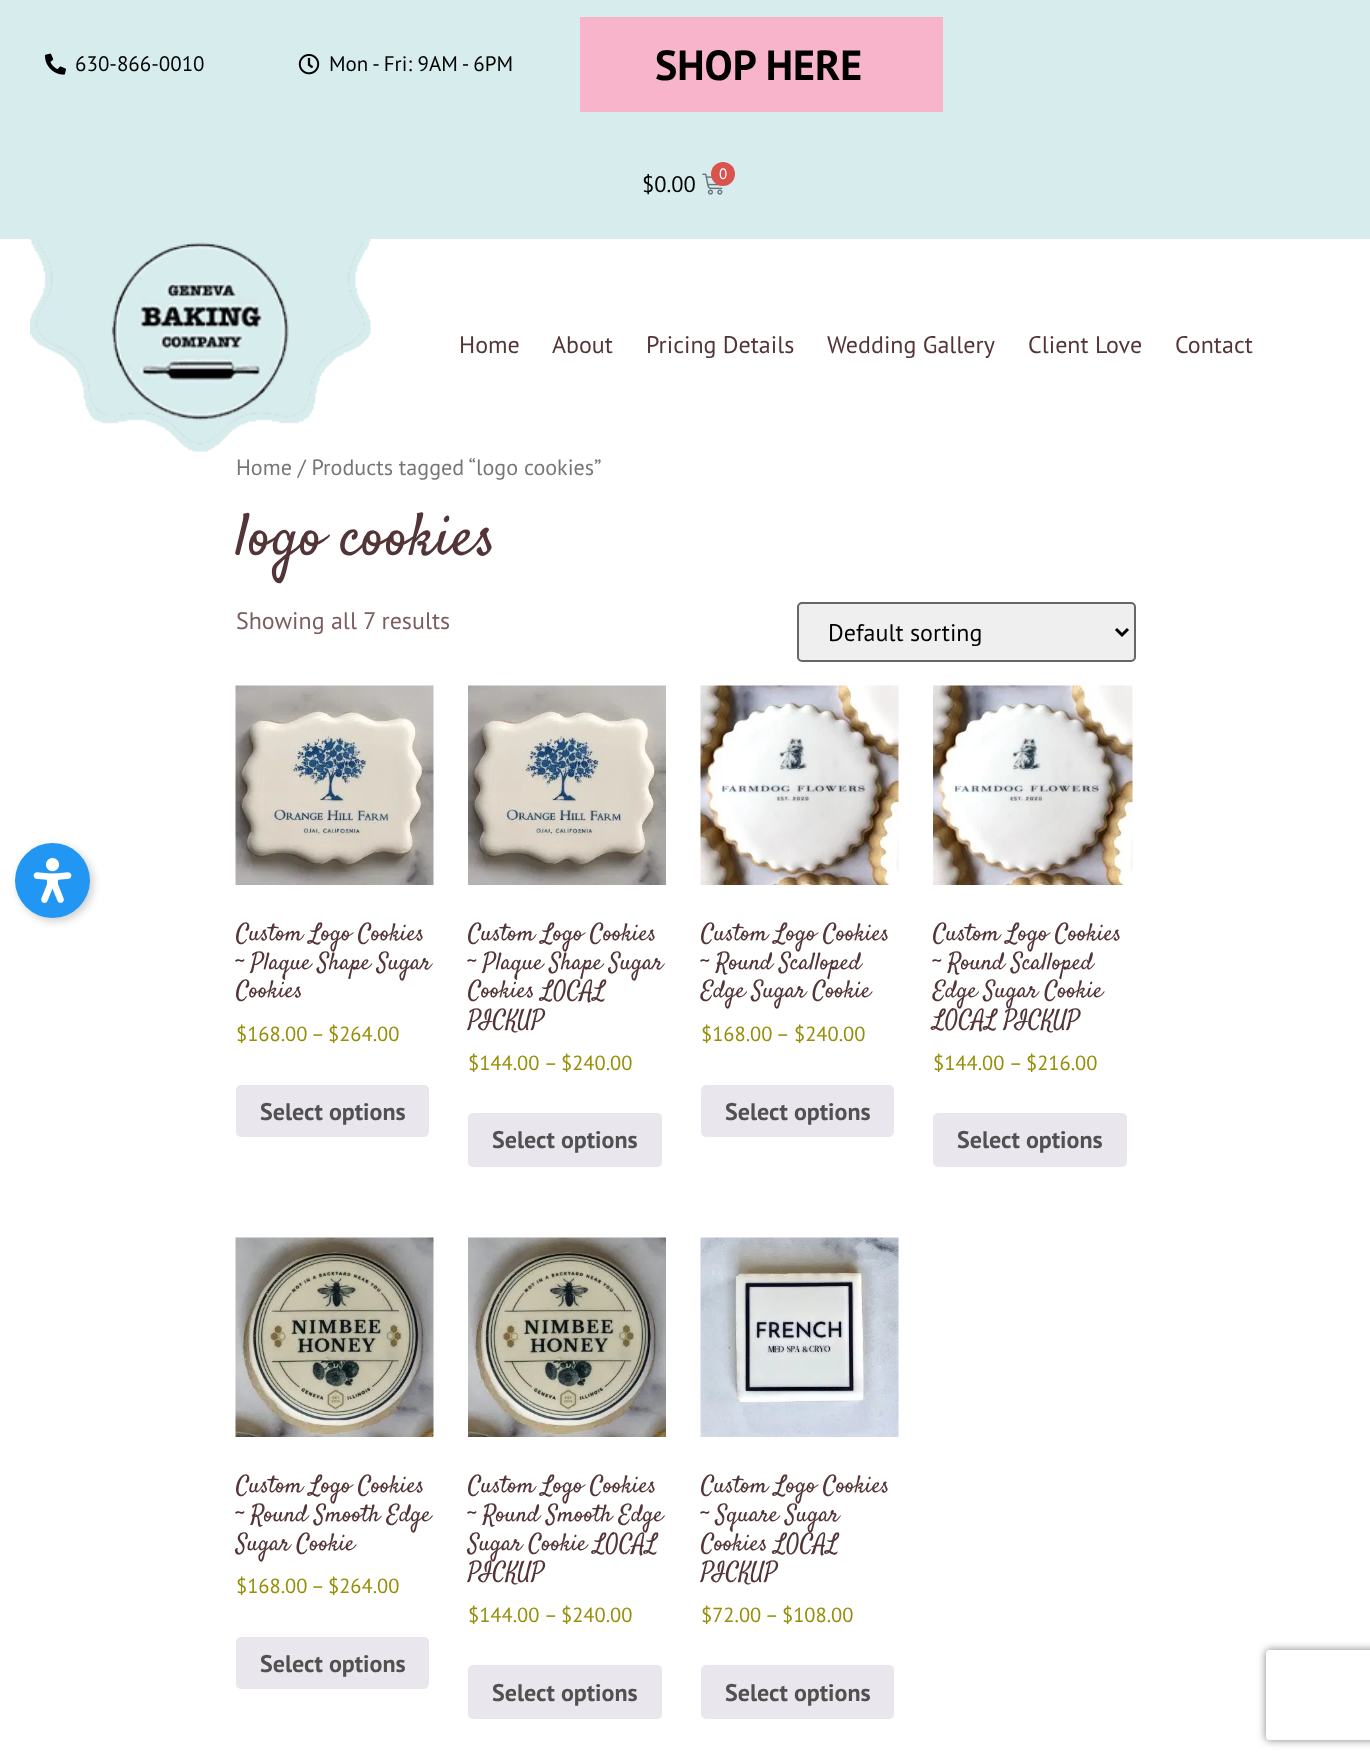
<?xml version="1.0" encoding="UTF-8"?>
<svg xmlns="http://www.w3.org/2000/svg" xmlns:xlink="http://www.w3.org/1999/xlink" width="1370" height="1761">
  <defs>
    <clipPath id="clip1"><path d="M 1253 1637 h 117 v 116 h -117 z m 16 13 h 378 c 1.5 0 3 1.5 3 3 v 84 c 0 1.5 -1.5 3 -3 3 h -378 c -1.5 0 -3 -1.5 -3 -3 v -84 c 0 -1.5 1.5 -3 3 -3 z" clip-rule="evenodd" /></clipPath>
  </defs>
  <rect width="100%" height="100%" fill="#ffffff" />
  <rect width="1370" height="239" fill="#d7eced" />
  <image x="45" y="53" width="21" height="22" xlink:href="image1.png" />
  <image x="298" y="54" width="22" height="21" xlink:href="image2.png" />
  <rect x="580" y="17" width="363" height="95" fill="#f7b4cb" />
  <image x="702" y="173" width="21" height="22" xlink:href="image3.png" />
  <circle cx="723" cy="174" r="12" fill="#d9534f" />
  <image x="30" y="237" width="341" height="215" xlink:href="image4.png" />
  <rect x="18" y="846" width="75" height="75" rx="37.5" fill="#000000" fill-opacity="0.2" filter="blur(4px)" />
  <circle cx="52.5" cy="880.5" r="37.5" fill="#2196f3" />
  <image x="33" y="858" width="39" height="45" xlink:href="image5.png" />
  <rect x="798" y="603" width="337" height="58" rx="4" fill="#efefef" stroke="#666666" stroke-width="2" />
  <path d="M 1116 629 l 6 6 l 6 -6" fill="none" stroke="#000000" stroke-width="3" />
  <image x="235" y="685" width="199" height="200" xlink:href="image6.png" />
  <rect x="236" y="1085" width="193" height="52" rx="5" fill="#e9e6ed" />
  <image x="468" y="685" width="198" height="200" xlink:href="image7.png" />
  <rect x="468" y="1113" width="194" height="54" rx="5" fill="#e9e6ed" />
  <image x="700" y="685" width="199" height="200" xlink:href="image8.png" />
  <rect x="701" y="1085" width="193" height="52" rx="5" fill="#e9e6ed" />
  <image x="933" y="685" width="200" height="200" xlink:href="image9.png" />
  <rect x="933" y="1113" width="194" height="54" rx="5" fill="#e9e6ed" />
  <image x="235" y="1237" width="199" height="200" xlink:href="image10.png" />
  <rect x="236" y="1637" width="193" height="52" rx="5" fill="#e9e6ed" />
  <image x="468" y="1237" width="198" height="200" xlink:href="image11.png" />
  <rect x="468" y="1665" width="194" height="54" rx="5" fill="#e9e6ed" />
  <image x="700" y="1237" width="199" height="200" xlink:href="image12.png" />
  <rect x="701" y="1665" width="193" height="54" rx="5" fill="#e9e6ed" />
  <g clip-path="url(#clip1)">
    <rect x="1266" y="1650" width="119" height="90" rx="3" fill="#808080" filter="blur(4px)" />
  </g>
  <text x="75" y="71" style="font-family: PT Sans; font-size: 21px; fill: #000000">630-866-0010</text>
  <text x="329" y="71" style="font-family: PT Sans; font-size: 21px; fill: #000000">Mon - Fri: 9AM - 6PM</text>
  <text x="655" y="80" style="font-family: PT Sans; font-size: 42px; font-weight: bold; fill: #000000">SHOP HERE</text>
  <text x="642" y="192" style="font-family: PT Sans; font-size: 22.5px; fill: #000000">$0.00</text>
  <text x="719" y="179" style="font-family: PT Sans; font-size: 15px; fill: #ffffff">0</text>
  <text x="459" y="353" style="font-family: PT Sans; font-size: 24px; fill: #533537">Home</text>
  <text x="552" y="353" style="font-family: PT Sans; font-size: 24px; fill: #533537">About</text>
  <text x="646" y="353" style="font-family: PT Sans; font-size: 24px; fill: #533537">Pricing Details</text>
  <text x="827" y="353" style="font-family: PT Sans; font-size: 24px; fill: #533537">Wedding Gallery</text>
  <text x="1028" y="353" style="font-family: PT Sans; font-size: 24px; fill: #533537">Client Love</text>
  <text x="1175" y="353" style="font-family: PT Sans; font-size: 24px; fill: #533537">Contact</text>
  <text x="236" y="475" style="font-family: PT Sans; font-size: 22.1px; fill: #767676">Home / Products tagged “logo cookies”</text>
  <text x="236" y="554" style="font-family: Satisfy; font-size: 60px; fill: #533537">logo cookies</text>
  <text x="236" y="629" style="font-family: PT Sans; font-size: 24px; fill: #7c5e60">Showing all 7 results</text>
  <text x="828" y="641" style="font-family: PT Sans; font-size: 24px; fill: #000000">Default sorting</text>
  <text x="236" y="940" style="font-family: Satisfy; font-size: 24px; fill: #533537">Custom Logo Cookies</text>
  <text x="236" y="969" style="font-family: Satisfy; font-size: 24px; fill: #533537">~ Plaque Shape Sugar</text>
  <text x="236" y="997" style="font-family: Satisfy; font-size: 24px; fill: #533537">Cookies</text>
  <text x="236" y="1041" style="font-family: PT Sans; font-size: 20.5px; fill: #958e09">$168.00</text>
  <text x="311" y="1041" style="font-family: PT Sans; font-size: 20.5px; fill: #958e09">–</text>
  <text x="328" y="1041" style="font-family: PT Sans; font-size: 20.5px; fill: #958e09">$264.00</text>
  <text x="260" y="1120" style="font-family: PT Sans; font-size: 24px; font-weight: bold; fill: #515151">Select options</text>
  <text x="468" y="940" style="font-family: Satisfy; font-size: 24px; fill: #533537">Custom Logo Cookies</text>
  <text x="468" y="969" style="font-family: Satisfy; font-size: 24px; fill: #533537">~ Plaque Shape Sugar</text>
  <text x="468" y="997" style="font-family: Satisfy; font-size: 24px; fill: #533537">Cookies LOCAL</text>
  <text x="468" y="1026" style="font-family: Satisfy; font-size: 24px; fill: #533537">PICKUP</text>
  <text x="468" y="1070" style="font-family: PT Sans; font-size: 20.5px; fill: #958e09">$144.00</text>
  <text x="544" y="1070" style="font-family: PT Sans; font-size: 20.5px; fill: #958e09">–</text>
  <text x="561" y="1070" style="font-family: PT Sans; font-size: 20.5px; fill: #958e09">$240.00</text>
  <text x="492" y="1148" style="font-family: PT Sans; font-size: 24px; font-weight: bold; fill: #515151">Select options</text>
  <text x="701" y="940" style="font-family: Satisfy; font-size: 24px; fill: #533537">Custom Logo Cookies</text>
  <text x="701" y="969" style="font-family: Satisfy; font-size: 24px; fill: #533537">~ Round Scalloped</text>
  <text x="701" y="997" style="font-family: Satisfy; font-size: 24px; fill: #533537">Edge Sugar Cookie</text>
  <text x="701" y="1041" style="font-family: PT Sans; font-size: 20.5px; fill: #958e09">$168.00</text>
  <text x="776" y="1041" style="font-family: PT Sans; font-size: 20.5px; fill: #958e09">–</text>
  <text x="794" y="1041" style="font-family: PT Sans; font-size: 20.5px; fill: #958e09">$240.00</text>
  <text x="725" y="1120" style="font-family: PT Sans; font-size: 24px; font-weight: bold; fill: #515151">Select options</text>
  <text x="933" y="940" style="font-family: Satisfy; font-size: 24px; fill: #533537">Custom Logo Cookies</text>
  <text x="933" y="969" style="font-family: Satisfy; font-size: 24px; fill: #533537">~ Round Scalloped</text>
  <text x="933" y="997" style="font-family: Satisfy; font-size: 24px; fill: #533537">Edge Sugar Cookie</text>
  <text x="933" y="1026" style="font-family: Satisfy; font-size: 24px; fill: #533537">LOCAL PICKUP</text>
  <text x="933" y="1070" style="font-family: PT Sans; font-size: 20.5px; fill: #958e09">$144.00</text>
  <text x="1009" y="1070" style="font-family: PT Sans; font-size: 20.5px; fill: #958e09">–</text>
  <text x="1026" y="1070" style="font-family: PT Sans; font-size: 20.5px; fill: #958e09">$216.00</text>
  <text x="957" y="1148" style="font-family: PT Sans; font-size: 24px; font-weight: bold; fill: #515151">Select options</text>
  <text x="236" y="1492" style="font-family: Satisfy; font-size: 24px; fill: #533537">Custom Logo Cookies</text>
  <text x="236" y="1521" style="font-family: Satisfy; font-size: 24px; fill: #533537">~ Round Smooth Edge</text>
  <text x="236" y="1550" style="font-family: Satisfy; font-size: 24px; fill: #533537">Sugar Cookie</text>
  <text x="236" y="1593" style="font-family: PT Sans; font-size: 20.5px; fill: #958e09">$168.00</text>
  <text x="311" y="1593" style="font-family: PT Sans; font-size: 20.5px; fill: #958e09">–</text>
  <text x="328" y="1593" style="font-family: PT Sans; font-size: 20.5px; fill: #958e09">$264.00</text>
  <text x="260" y="1672" style="font-family: PT Sans; font-size: 24px; font-weight: bold; fill: #515151">Select options</text>
  <text x="468" y="1492" style="font-family: Satisfy; font-size: 24px; fill: #533537">Custom Logo Cookies</text>
  <text x="468" y="1521" style="font-family: Satisfy; font-size: 24px; fill: #533537">~ Round Smooth Edge</text>
  <text x="468" y="1550" style="font-family: Satisfy; font-size: 24px; fill: #533537">Sugar Cookie LOCAL</text>
  <text x="468" y="1578" style="font-family: Satisfy; font-size: 24px; fill: #533537">PICKUP</text>
  <text x="468" y="1622" style="font-family: PT Sans; font-size: 20.5px; fill: #958e09">$144.00</text>
  <text x="544" y="1622" style="font-family: PT Sans; font-size: 20.5px; fill: #958e09">–</text>
  <text x="561" y="1622" style="font-family: PT Sans; font-size: 20.5px; fill: #958e09">$240.00</text>
  <text x="492" y="1701" style="font-family: PT Sans; font-size: 24px; font-weight: bold; fill: #515151">Select options</text>
  <text x="701" y="1492" style="font-family: Satisfy; font-size: 24px; fill: #533537">Custom Logo Cookies</text>
  <text x="701" y="1521" style="font-family: Satisfy; font-size: 24px; fill: #533537">~ Square Sugar</text>
  <text x="701" y="1550" style="font-family: Satisfy; font-size: 24px; fill: #533537">Cookies LOCAL</text>
  <text x="701" y="1578" style="font-family: Satisfy; font-size: 24px; fill: #533537">PICKUP</text>
  <text x="701" y="1622" style="font-family: PT Sans; font-size: 20.5px; fill: #958e09">$72.00</text>
  <text x="765" y="1622" style="font-family: PT Sans; font-size: 20.5px; fill: #958e09">–</text>
  <text x="782" y="1622" style="font-family: PT Sans; font-size: 20.5px; fill: #958e09">$108.00</text>
  <text x="725" y="1701" style="font-family: PT Sans; font-size: 24px; font-weight: bold; fill: #515151">Select options</text>
</svg>
